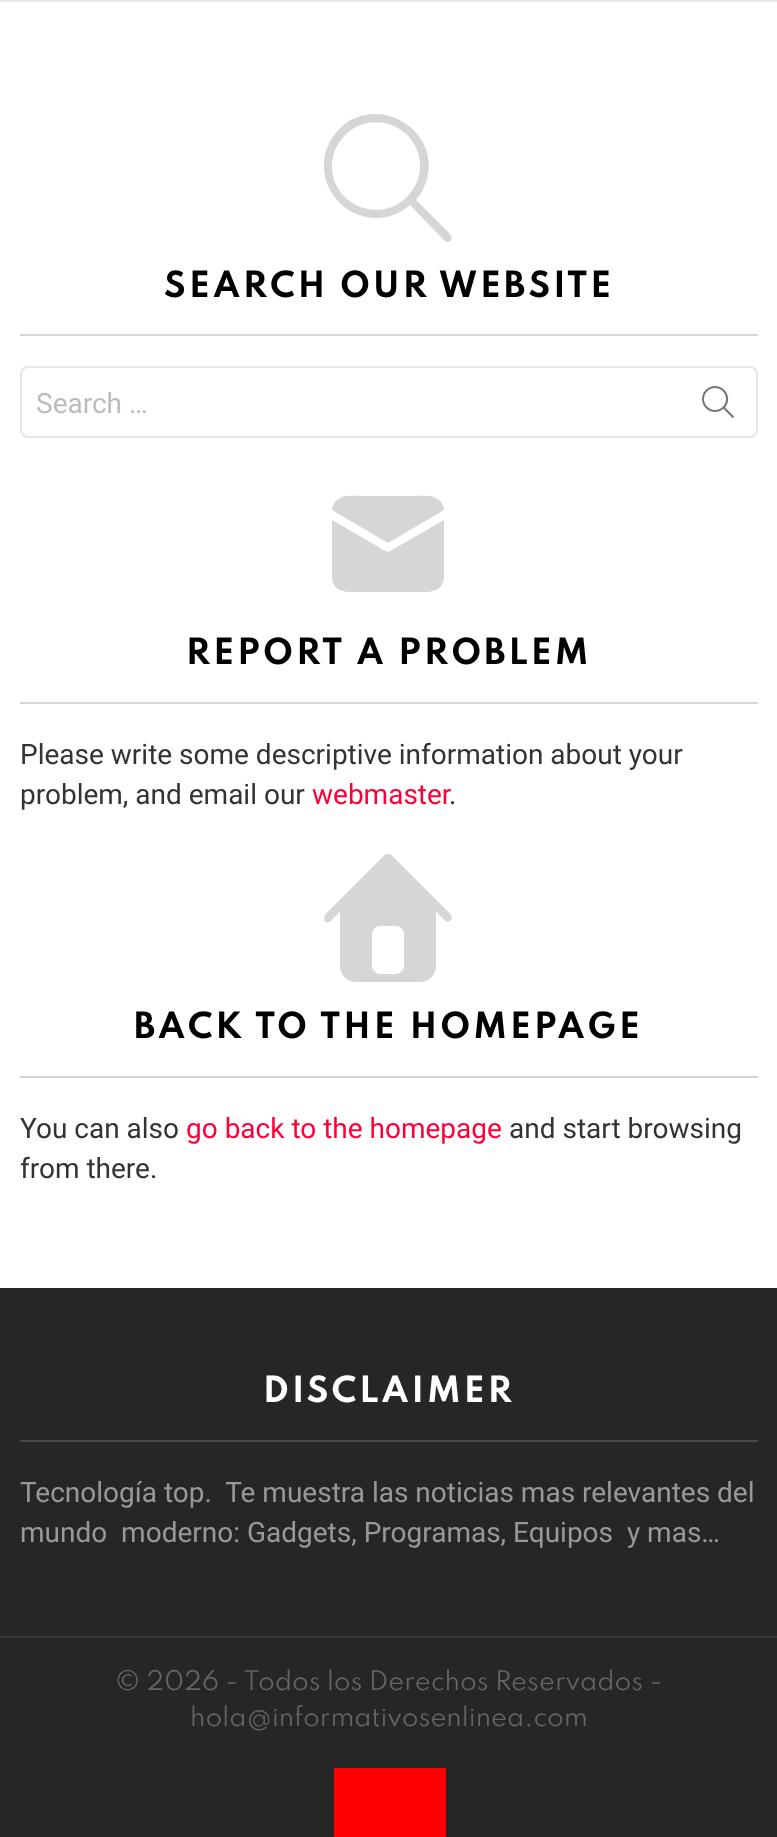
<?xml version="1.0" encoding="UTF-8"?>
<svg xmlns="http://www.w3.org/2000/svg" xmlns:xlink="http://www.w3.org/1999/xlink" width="777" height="1837">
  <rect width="100%" height="100%" fill="#ffffff" />
  <rect width="777" height="2" fill="#e6e6e6" />
  <path d="M 451 235 l -35 -35 c 6 -7 10 -16 12 -25 c 8 -43 -41 -76 -79 -54 c -11 7 -19 18 -23 30 c -5 16 -1 35 10 48 c 18 22 52 26 74 6 l 29 30 c 2 1 5 7 9 7 c 4 -1 4 -5 3 -7 z m -119 -69 c 0 -9 3 -19 9 -26 c 25 -34 79 -16 79 26 c 0 9 -3 19 -9 26 c -25 34 -79 16 -79 -26 z" fill="#d6d6d6" />
  <rect x="20" y="334" width="738" height="2" fill="#d4d4d4" />
  <rect x="21" y="367" width="736" height="70" rx="7" fill="none" stroke="#e6e6e6" stroke-width="2" />
  <image x="702" y="386" width="32" height="32" xlink:href="image1.png" />
  <path d="M 388 543 l 56 -33 c 0 -3 -1 -5 -3 -8 c -7 -8 -17 -6 -26 -6 h -54 c -9 0 -19 -2 -26 6 c -2 3 -3 5 -3 8 z m 2 8 c -3 3 -13 -5 -13 -5 l -45 -26 v 58 c 2 16 18 14 29 14 h 54 c 11 0 27 2 29 -14 v -58 z" fill="#d6d6d6" />
  <rect x="20" y="702" width="738" height="2" fill="#d4d4d4" />
  <image x="324" y="854" width="128" height="128" xlink:href="image2.png" />
  <rect x="20" y="1076" width="738" height="2" fill="#d4d4d4" />
  <rect y="1288" width="777" height="348" fill="#262626" />
  <rect x="20" y="1440" width="738" height="2" fill="#4a4a4a" />
  <rect y="1636" width="777" height="2" fill="#393939" />
  <rect y="1638" width="777" height="199" fill="#262626" />
  <rect x="334" y="1768" width="112" height="69" fill="#ff0000" />
  <text x="164" y="297" style="font-family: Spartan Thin; font-size: 32px; font-weight: bold; letter-spacing: 3.1px; fill: #000000">SEARCH OUR WEBSITE</text>
  <text x="36" y="413" style="font-family: Roboto; font-size: 28px; fill: #bcbcbc">Search …</text>
  <text x="186" y="664" style="font-family: Spartan Thin; font-size: 32px; font-weight: bold; letter-spacing: 3.1px; fill: #000000">REPORT A PROBLEM</text>
  <text x="20" y="764" style="font-family: Roboto; font-size: 28px; fill: #333333">Please write some descriptive information about your</text>
  <text x="20" y="804" style="font-family: Roboto; font-size: 28px; fill: #333333">problem, and email our</text>
  <text x="312" y="804" style="font-family: Roboto; font-size: 28px; fill: #ff0036">webmaster</text>
  <text x="449" y="804" style="font-family: Roboto; font-size: 28px; fill: #333333">.</text>
  <text x="134" y="1038" style="font-family: Spartan Thin; font-size: 32px; font-weight: bold; letter-spacing: 3.1px; fill: #000000">BACK TO THE HOMEPAGE</text>
  <text x="20" y="1138" style="font-family: Roboto; font-size: 28px; fill: #333333">You can also</text>
  <text x="186" y="1138" style="font-family: Roboto; font-size: 28px; fill: #ff0036">go back to the homepage</text>
  <text x="509" y="1138" style="font-family: Roboto; font-size: 28px; fill: #333333">and start browsing</text>
  <text x="20" y="1178" style="font-family: Roboto; font-size: 28px; fill: #333333">from there.</text>
  <text x="263" y="1402" style="font-family: Spartan Thin; font-size: 32px; font-weight: bold; letter-spacing: 3.1px; fill: #ffffff">DISCLAIMER</text>
  <text x="20" y="1502" style="font-family: Roboto; font-size: 28px; fill: #999999" xml:space="preserve">Tecnología top.  Te muestra las noticias mas relevantes del</text>
  <text x="20" y="1542" style="font-family: Roboto; font-size: 28px; fill: #999999" xml:space="preserve">mundo  moderno: Gadgets, Programas, Equipos  y mas…</text>
  <text x="115" y="1690" style="font-family: Spartan Thin; font-size: 24px; fill: #666666">© 2026 - Todos los Derechos Reservados -</text>
  <text x="190" y="1726" style="font-family: Spartan Thin; font-size: 24px; fill: #666666">hola@informativosenlinea.com</text>
</svg>
